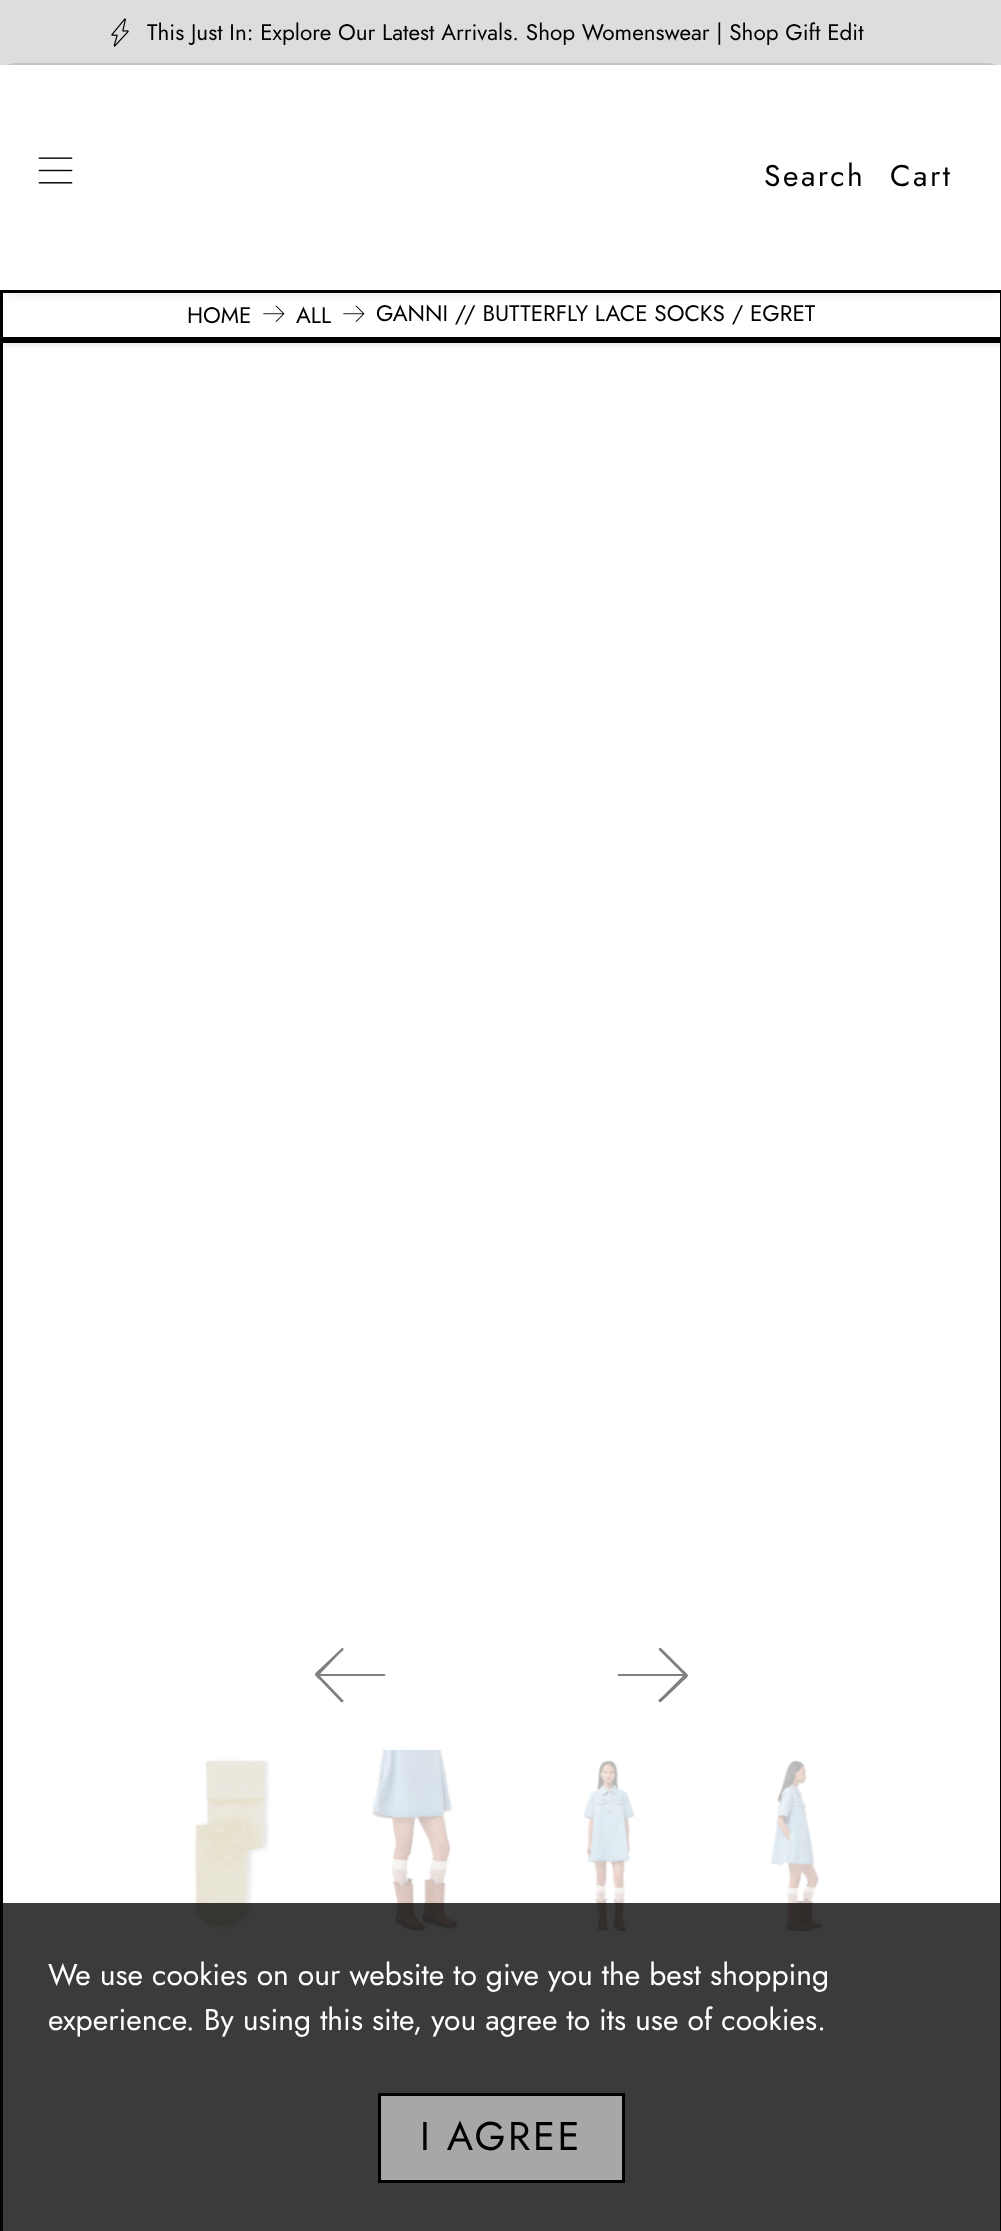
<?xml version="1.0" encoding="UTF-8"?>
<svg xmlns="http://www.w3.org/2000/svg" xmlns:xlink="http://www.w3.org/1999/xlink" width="1001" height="2231">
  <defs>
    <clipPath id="clip1"><rect x="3" y="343" width="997" height="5" /></clipPath>
  </defs>
  <rect width="100%" height="100%" fill="#ffffff" />
  <rect width="1001" height="65" fill="#dddddd" />
  <image x="111" y="18" width="18" height="29" xlink:href="image1.png" />
  <g clip-path="url(#clip1)">
    <rect y="295" width="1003" height="50" fill="#0a0a0a" fill-opacity="0.1" filter="blur(4px)" />
  </g>
  <rect x="1.5" y="291.5" width="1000" height="47" fill="none" stroke="#000000" stroke-width="3" />
  <rect x="-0.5" y="64.5" width="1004" height="227" rx="16.5" fill="none" stroke="#0a0a0a" stroke-opacity="0.1" stroke-width="3" />
  <rect y="70" width="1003" height="225" rx="15" fill="#0a0a0a" fill-opacity="0.1" filter="blur(4px)" />
  <rect y="65" width="1001" height="225" fill="#ffffff" />
  <image x="38" y="157" width="35" height="27" xlink:href="image2.png" />
  <image x="263" y="305" width="22" height="17" xlink:href="image3.png" />
  <image x="343" y="305" width="22" height="17" xlink:href="image3.png" />
  <rect x="-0.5" y="339.5" width="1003" height="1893" fill="none" stroke="#0a0a0a" stroke-opacity="0.1" stroke-width="3" />
  <rect x="1.5" y="341.5" width="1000" height="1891" fill="none" stroke="#000000" stroke-width="3" />
  <path d="M 384 1674 h -64 l 19 -20 c 2 -2 6 -4 4 -6 h -1 l -18 17 c -10 10 -12 8 -4 15 l 21 22 c 1 1 4 -1 2 -2 l -23 -24 h 64 c 2 0 2 -2 0 -2 z" fill="#808080" />
  <path d="M 619 1676 h 64 l -20 20 c -2 2 -6 4 -4 6 h 2 l 18 -17 c 10 -10 12 -8 4 -15 l -22 -22 c -1 -1 -3 1 -2 2 l 24 24 h -64 c -2 0 -2 2 0 2 z" fill="#808080" />
  <image x="194" y="1759" width="75" height="170" xlink:href="image4.png" />
  <image x="372" y="1750" width="86" height="181" xlink:href="image5.png" />
  <image x="583" y="1760" width="52" height="172" xlink:href="image6.png" />
  <image x="770" y="1760" width="53" height="172" xlink:href="image7.png" />
  <rect x="3" y="1903" width="997" height="328" fill="#000000" fill-opacity="0.77" />
  <rect x="379.5" y="2094.5" width="244" height="87" fill="#a7a7a7" stroke="#000000" stroke-width="3" />
  <text x="147" y="40" style="font-family: Jost; font-size: 22.5px; fill: #000000">This Just In: Explore Our Latest Arrivals. Shop Womenswear | Shop Gift Edit</text>
  <text x="764" y="186" style="font-family: Jost; font-size: 30px; letter-spacing: 2.5px; fill: #000000">Search</text>
  <text x="890" y="186" style="font-family: Jost; font-size: 30px; letter-spacing: 2.5px; fill: #000000">Cart</text>
  <text x="187" y="323" style="font-family: Jost; font-size: 22.5px; fill: #000000">HOME</text>
  <text x="296" y="323" style="font-family: Jost; font-size: 22.5px; fill: #000000">ALL</text>
  <text x="376" y="321" style="font-family: Jost; font-size: 22.5px; fill: #000000">GANNI // BUTTERFLY LACE SOCKS / EGRET</text>
  <text x="48" y="1985" style="font-family: Jost; font-size: 30px; fill: #ffffff">We use cookies on our website to give you the best shopping</text>
  <text x="48" y="2030" style="font-family: Jost; font-size: 30px; fill: #ffffff">experience. By using this site, you agree to its use of cookies.</text>
  <text x="420" y="2150" style="font-family: Jost; font-size: 40px; letter-spacing: 2.5px; fill: #000000">I AGREE</text>
</svg>
